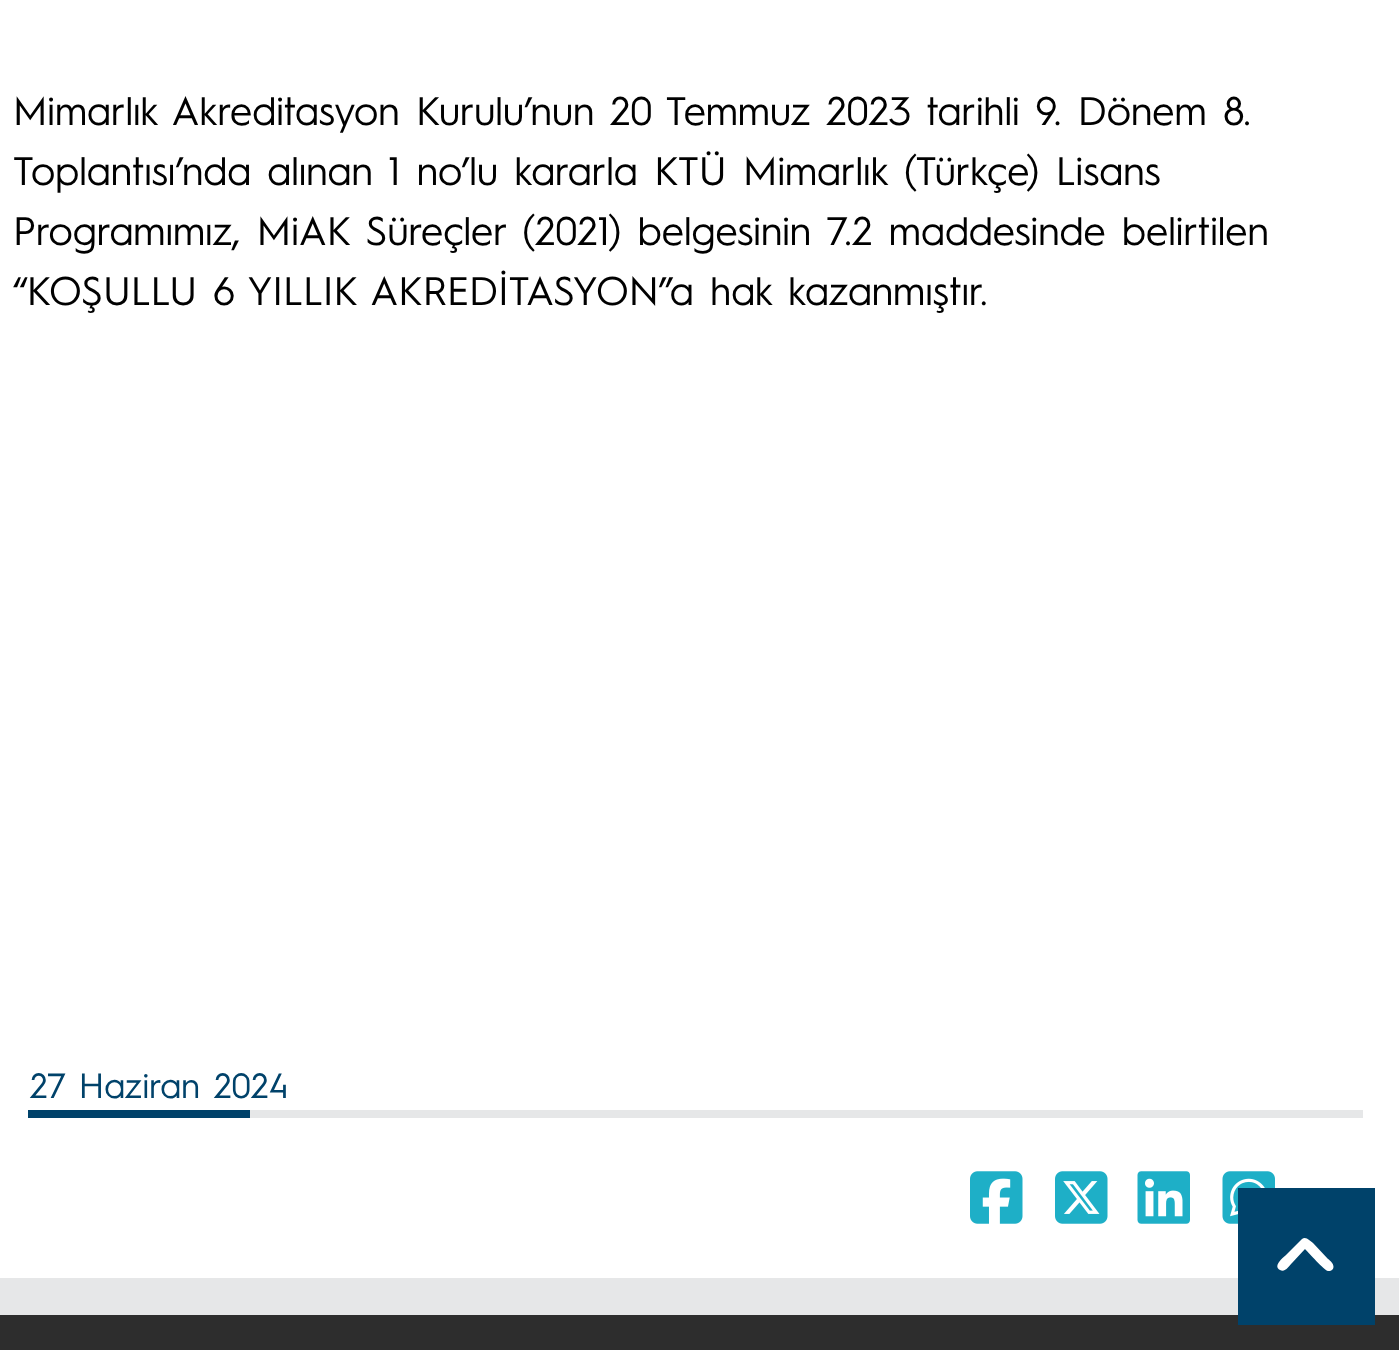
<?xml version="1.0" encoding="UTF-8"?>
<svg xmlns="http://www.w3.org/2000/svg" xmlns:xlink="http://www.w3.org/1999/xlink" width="1399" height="1350">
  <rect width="100%" height="100%" fill="#ffffff" />
  <rect x="28" y="1110" width="222" height="8" fill="#00426a" />
  <rect x="250" y="1110" width="1113" height="8" fill="#e6e7e8" />
  <image x="970" y="1171" width="53" height="53" xlink:href="image1.png" />
  <image x="1055" y="1171" width="53" height="53" xlink:href="image2.png" />
  <image x="1137" y="1171" width="53" height="53" xlink:href="image3.png" />
  <image x="1222" y="1171" width="53" height="53" xlink:href="image4.png" />
  <rect y="1278" width="1399" height="37" fill="#e6e7e8" />
  <rect y="1315" width="1399" height="35" fill="#2d2d2d" />
  <rect x="1238" y="1188" width="137" height="137" fill="#00426a" />
  <path d="M 1302 1239 c 4 -3 8 2 11 4 l 15 16 c 3 2 8 7 4 11 c -1 1 -3 1 -4 1 c -4 -1 -19 -18 -23 -22 l -13 14 c -3 3 -7 10 -12 7 c -8 -4 4 -13 6 -15 z" fill="#ffffff" />
  <text x="13" y="125" style="font-family: 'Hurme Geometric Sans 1'; font-size: 40px; fill: #000000">Mimarlık Akreditasyon Kurulu’nun 20 Temmuz 2023 tarihli 9. Dönem 8.</text>
  <text x="13" y="185" style="font-family: 'Hurme Geometric Sans 1'; font-size: 40px; fill: #000000">Toplantısı’nda alınan 1 no’lu kararla KTÜ Mimarlık (Türkçe) Lisans</text>
  <text x="13" y="245" style="font-family: 'Hurme Geometric Sans 1'; font-size: 40px; fill: #000000">Programımız, MiAK Süreçler (2021) belgesinin 7.2 maddesinde belirtilen</text>
  <text x="13" y="305" style="font-family: 'Hurme Geometric Sans 1'; font-size: 40px; fill: #000000">“KOŞULLU 6 YILLIK AKREDİTASYON”a hak kazanmıştır.</text>
  <text x="30" y="1098" style="font-family: 'Hurme Geometric Sans 1'; font-size: 35px; fill: #00426a">27 Haziran 2024</text>
</svg>
